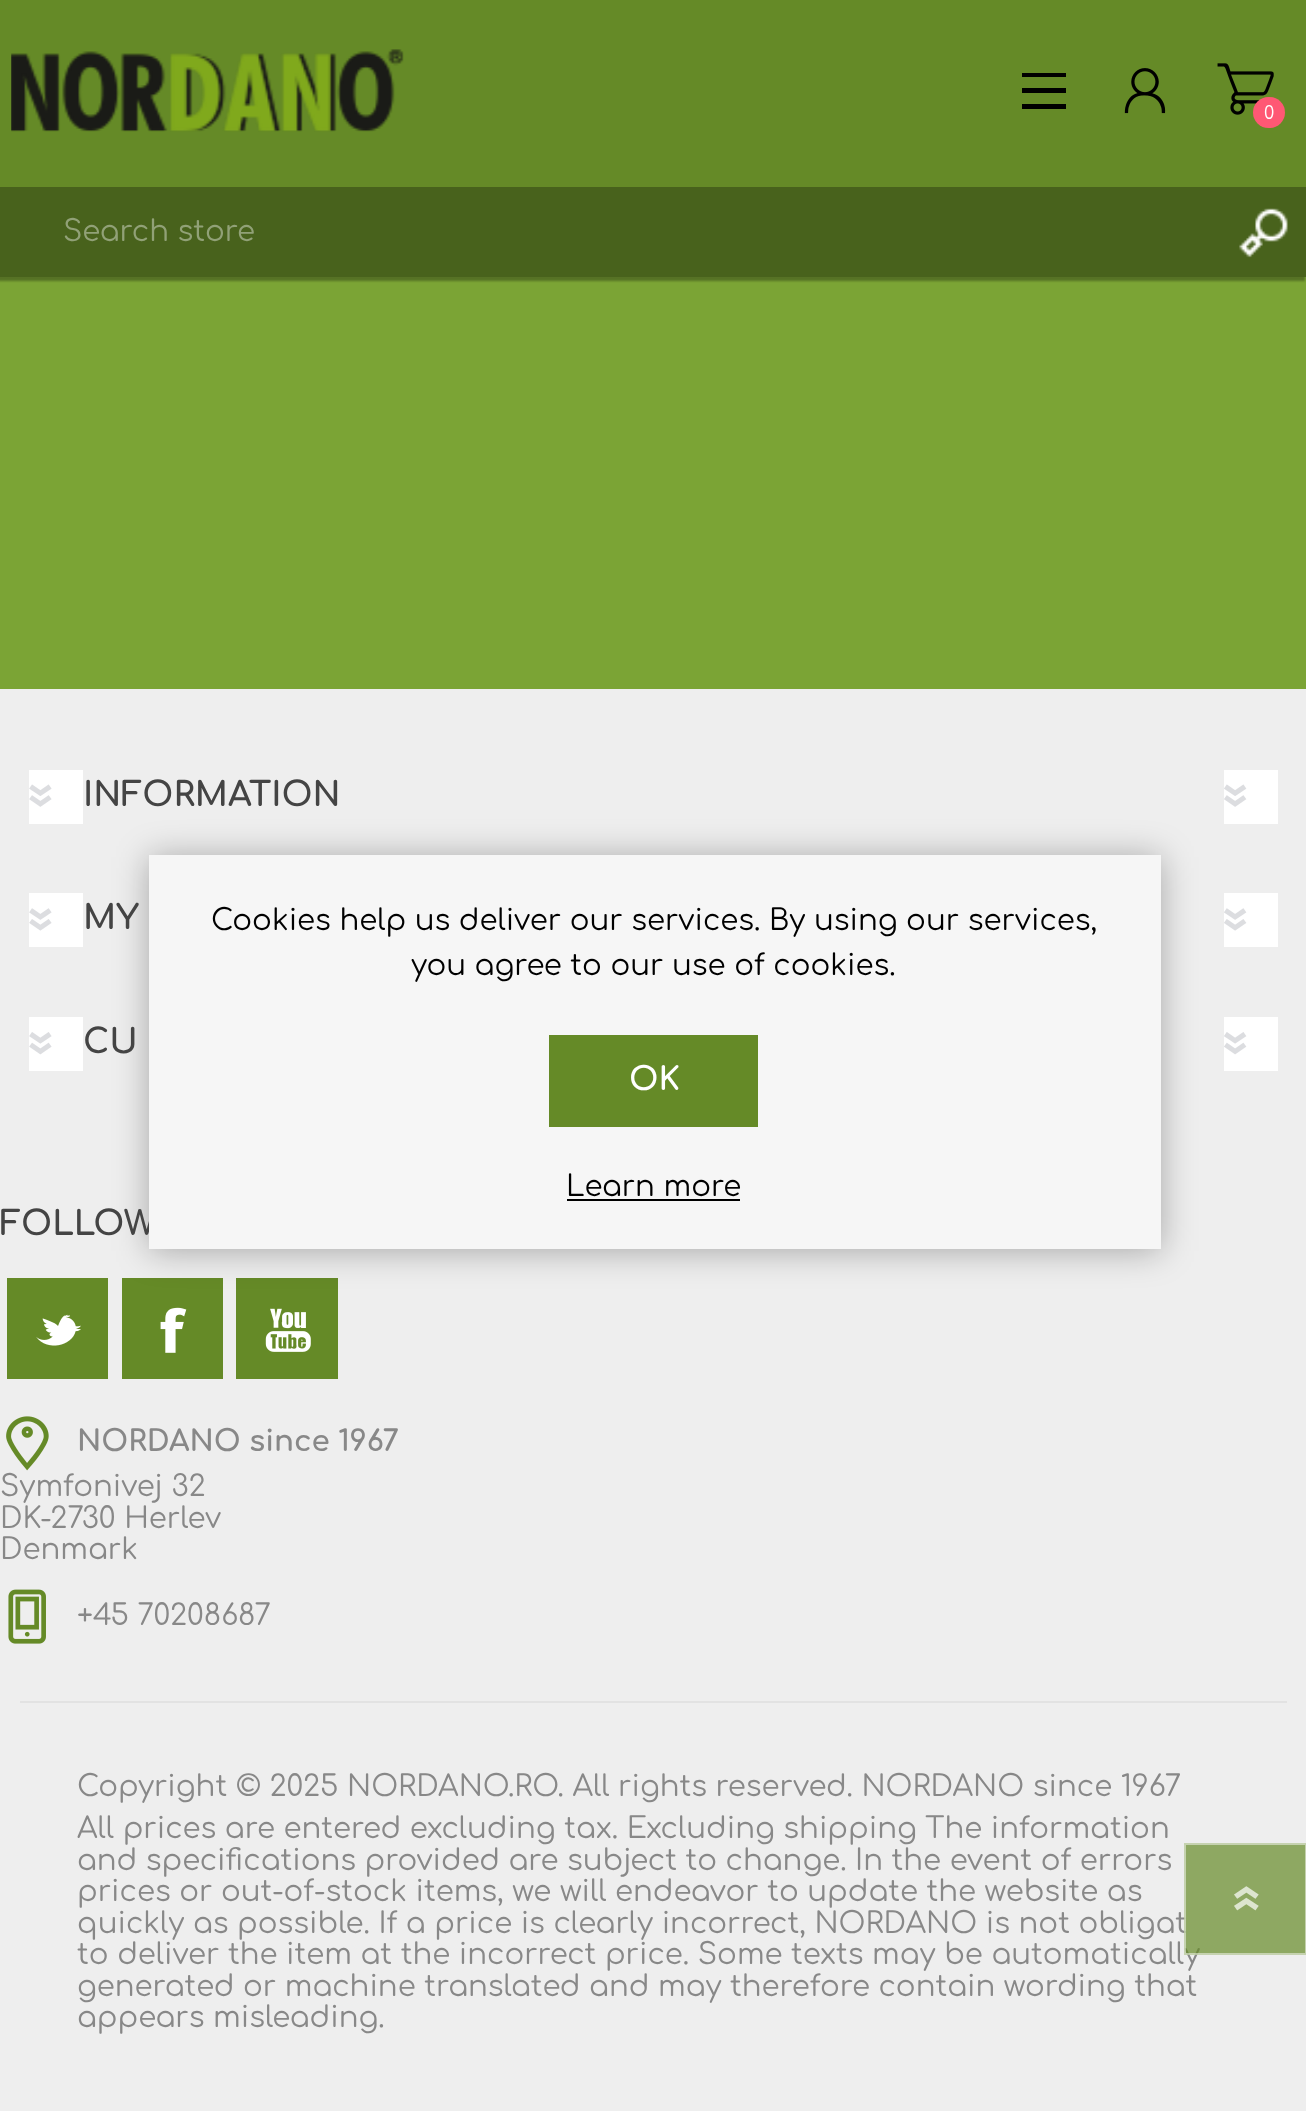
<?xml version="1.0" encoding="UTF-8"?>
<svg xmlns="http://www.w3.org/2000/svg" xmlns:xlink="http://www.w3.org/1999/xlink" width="1306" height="2111">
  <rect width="100%" height="100%" fill="#eeeeee" />
  <rect width="1306" height="187" fill="#658a27" />
  <path d="M 1022 73 v 4 h 44 v -4 z m 0 20 h 44 v -5 h -44 z m 0 16 h 44 v -5 h -44 z" fill="#000000" />
  <image x="1124" y="68" width="42" height="46" xlink:href="image1.png" />
  <image x="1217" y="63" width="57" height="52" xlink:href="image2.png" />
  <rect x="1253" y="97" width="32" height="31" rx="15.5" fill="#ff5874" />
  <image x="11" y="49" width="393" height="83" xlink:href="image3.png" />
  <rect y="277" width="1306" height="412" fill="#7ba435" />
  <rect x="-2" y="191" width="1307" height="90" fill="#000000" fill-opacity="0.3" filter="blur(1px)" />
  <rect y="187" width="1306" height="90" fill="#48621c" />
  <image x="1239" y="208" width="49" height="50" xlink:href="image4.png" />
  <rect x="29" y="770" width="54" height="54" fill="#ffffff" />
  <image x="29" y="784" width="23" height="23" xlink:href="image5.png" />
  <rect x="1224" y="770" width="54" height="54" fill="#ffffff" />
  <image x="1224" y="784" width="23" height="23" xlink:href="image6.png" />
  <rect x="29" y="893" width="54" height="54" fill="#ffffff" />
  <image x="29" y="908" width="23" height="23" xlink:href="image7.png" />
  <rect x="1224" y="893" width="54" height="54" fill="#ffffff" />
  <image x="1224" y="908" width="23" height="23" xlink:href="image8.png" />
  <rect x="29" y="1017" width="54" height="54" fill="#ffffff" />
  <image x="29" y="1032" width="23" height="23" xlink:href="image9.png" />
  <rect x="1224" y="1017" width="54" height="54" fill="#ffffff" />
  <image x="1224" y="1032" width="23" height="23" xlink:href="image10.png" />
  <rect x="7" y="1278" width="101" height="101" fill="#658a27" />
  <image x="36" y="1314" width="45" height="32" xlink:href="image11.png" />
  <rect x="122" y="1278" width="101" height="101" fill="#658a27" />
  <image x="160" y="1307" width="27" height="46" xlink:href="image12.png" />
  <rect x="236" y="1278" width="102" height="101" fill="#658a27" />
  <image x="265" y="1308" width="46" height="44" xlink:href="image13.png" />
  <image x="6" y="1416" width="43" height="55" xlink:href="image14.png" />
  <image x="8" y="1589" width="38" height="55" xlink:href="image15.png" />
  <rect x="20" y="1701" width="1267" height="2" fill="#e2e2e2" />
  <rect x="149" y="857" width="1012" height="394" fill="#000000" fill-opacity="0.3" filter="blur(17px)" />
  <text x="1264" y="119" style="font-family: Comfortaa; font-size: 18px; fill: #ffffff">0</text>
  <text x="63" y="241" style="font-family: Comfortaa; font-size: 29.25px; fill: #91a177">Search store</text>
  <text x="83" y="806" style="font-family: Comfortaa; font-size: 33.75px; font-weight: bold; fill: #444444">INFORMATION</text>
  <text x="83" y="929" style="font-family: Comfortaa; font-size: 33.75px; font-weight: bold; fill: #444444">MY</text>
  <text x="83" y="1053" style="font-family: Comfortaa; font-size: 33.75px; font-weight: bold; fill: #444444">CU</text>
  <text x="0" y="1235" style="font-family: Comfortaa; font-size: 33.75px; font-weight: bold; fill: #444444">FOLLOW</text>
  <text x="77" y="1451" style="font-family: Comfortaa; font-size: 29.25px; font-weight: bold; fill: #888888">NORDANO since 1967</text>
  <text x="0" y="1496" style="font-family: Comfortaa; font-size: 29.25px; fill: #888888">Symfonivej 32</text>
  <text x="0" y="1528" style="font-family: Comfortaa; font-size: 29.25px; fill: #888888">DK-2730 Herlev</text>
  <text x="0" y="1559" style="font-family: Comfortaa; font-size: 29.25px; fill: #888888">Denmark</text>
  <text x="77" y="1625" style="font-family: Comfortaa; font-size: 29.25px; fill: #888888">+45 70208687</text>
  <text x="77" y="1796" style="font-family: Comfortaa; font-size: 29.25px; fill: #888888">Copyright © 2025 NORDANO.RO. All rights reserved. NORDANO since 1967</text>
  <text x="77" y="1838" style="font-family: Comfortaa; font-size: 29.25px; fill: #888888">All prices are entered excluding tax. Excluding shipping The information</text>
  <text x="77" y="1870" style="font-family: Comfortaa; font-size: 29.25px; fill: #888888">and specifications provided are subject to change. In the event of errors</text>
  <text x="77" y="1901" style="font-family: Comfortaa; font-size: 29.25px; fill: #888888">prices or out-of-stock items, we will endeavor to update the website as</text>
  <text x="77" y="1933" style="font-family: Comfortaa; font-size: 29.25px; fill: #888888">quickly as possible. If a price is clearly incorrect, NORDANO is not obligat</text>
  <text x="77" y="1964" style="font-family: Comfortaa; font-size: 29.25px; fill: #888888">to deliver the item at the incorrect price. Some texts may be automatically</text>
  <text x="77" y="1996" style="font-family: Comfortaa; font-size: 29.25px; fill: #888888">generated or machine translated and may therefore contain wording that</text>
  <text x="77" y="2027" style="font-family: Comfortaa; font-size: 29.25px; fill: #888888">appears misleading.</text>
  <rect x="149" y="855" width="1012" height="394" fill="#f6f6f6" />
  <text x="211" y="930" style="font-family: Comfortaa; font-size: 29.25px; fill: #000000">Cookies help us deliver our services. By using our services,</text>
  <text x="411" y="975" style="font-family: Comfortaa; font-size: 29.25px; fill: #000000">you agree to our use of cookies.</text>
  <rect x="549" y="1035" width="209" height="92" fill="#658a27" />
  <text x="629" y="1090" style="font-family: Comfortaa; font-size: 32px; font-weight: bold; fill: #ffffff">OK</text>
  <text x="566" y="1196" style="font-family: Comfortaa; font-size: 29.25px; fill: #000000">Learn more</text>
  <rect x="567" y="1199" width="173" height="2" fill="#000000" />
  <rect x="1184" y="1843" width="122" height="112" fill="#658a27" fill-opacity="0.7" />
  <rect x="1185" y="1844" width="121" height="110" fill="none" stroke="#ffffff" stroke-opacity="0.49" stroke-width="2" />
  <image x="1234" y="1886" width="25" height="25" xlink:href="image16.png" />
</svg>
